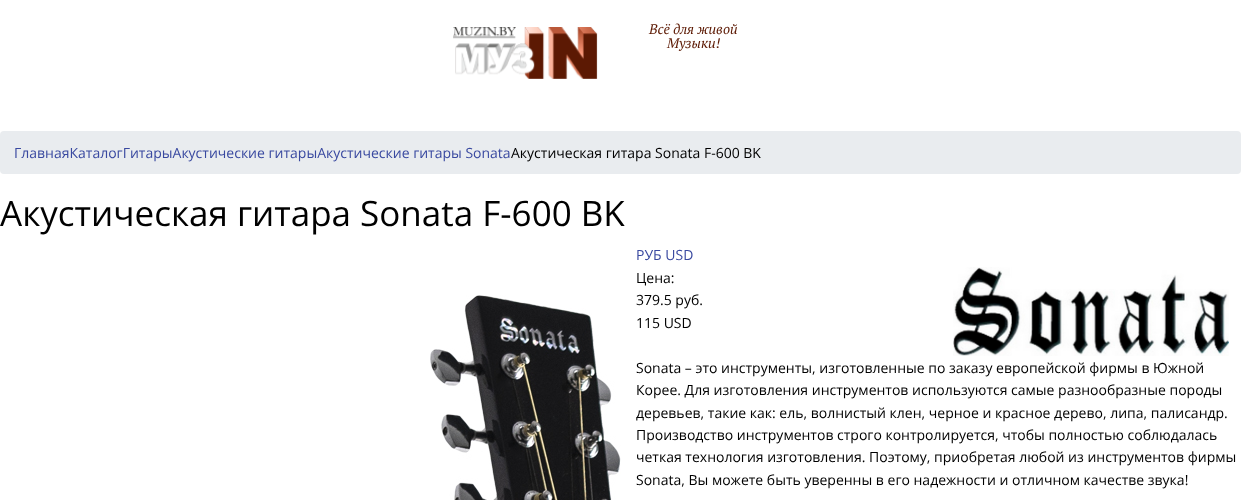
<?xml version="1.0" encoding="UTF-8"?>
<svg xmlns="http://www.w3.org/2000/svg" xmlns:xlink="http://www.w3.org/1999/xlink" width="1241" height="500">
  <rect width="100%" height="100%" fill="#ffffff" />
  <image x="453" y="27" width="145" height="52" xlink:href="image1.png" />
  <rect y="131" width="1241" height="43" rx="4" fill="#e9ecef" />
  <image x="430" y="295" width="191" height="205" xlink:href="image2.png" />
  <image x="953" y="267" width="276" height="89" xlink:href="image3.png" />
  <text x="649" y="34" style="font-family: PT Serif; font-size: 14px; font-style: italic; fill: #5c1903">Всё для живой</text>
  <text x="667" y="48" style="font-family: PT Serif; font-size: 14px; font-style: italic; fill: #5c1903">Музыки!</text>
  <text x="14" y="158" style="font-family: Open Sans; font-size: 14px; fill: #3949a0">ГлавнаяКаталогГитарыАкустические гитарыАкустические гитары Sonata</text>
  <text x="511" y="158" style="font-family: Open Sans; font-size: 14px; fill: #000000">Акустическая гитара Sonata F-600 BK</text>
  <text x="0" y="226" style="font-family: Open Sans; font-size: 35px; fill: #000000">Акустическая гитара Sonata F-600 BK</text>
  <text x="636" y="260" style="font-family: Open Sans; font-size: 14px; fill: #3949a0">РУБ USD</text>
  <text x="636" y="283" style="font-family: Open Sans; font-size: 14px; fill: #000000">Цена:</text>
  <text x="636" y="305" style="font-family: Open Sans; font-size: 14px; fill: #000000">379.5 руб.</text>
  <text x="636" y="328" style="font-family: Open Sans; font-size: 14px; fill: #000000">115 USD</text>
  <text x="636" y="373" style="font-family: Open Sans; font-size: 14px; fill: #000000">Sonata – это инструменты, изготовленные по заказу европейской фирмы в Южной</text>
  <text x="636" y="395" style="font-family: Open Sans; font-size: 14px; fill: #000000">Корее. Для изготовления инструментов используются самые разнообразные породы</text>
  <text x="636" y="418" style="font-family: Open Sans; font-size: 14px; fill: #000000">деревьев, такие как: ель, волнистый клен, черное и красное дерево, липа, палисандр.</text>
  <text x="636" y="440" style="font-family: Open Sans; font-size: 14px; fill: #000000">Производство инструментов строго контролируется, чтобы полностью соблюдалась</text>
  <text x="636" y="462" style="font-family: Open Sans; font-size: 14px; fill: #000000">четкая технология изготовления. Поэтому, приобретая любой из инструментов фирмы</text>
  <text x="636" y="485" style="font-family: Open Sans; font-size: 14px; fill: #000000">Sonata, Вы можете быть уверенны в его надежности и отличном качестве звука!</text>
</svg>
